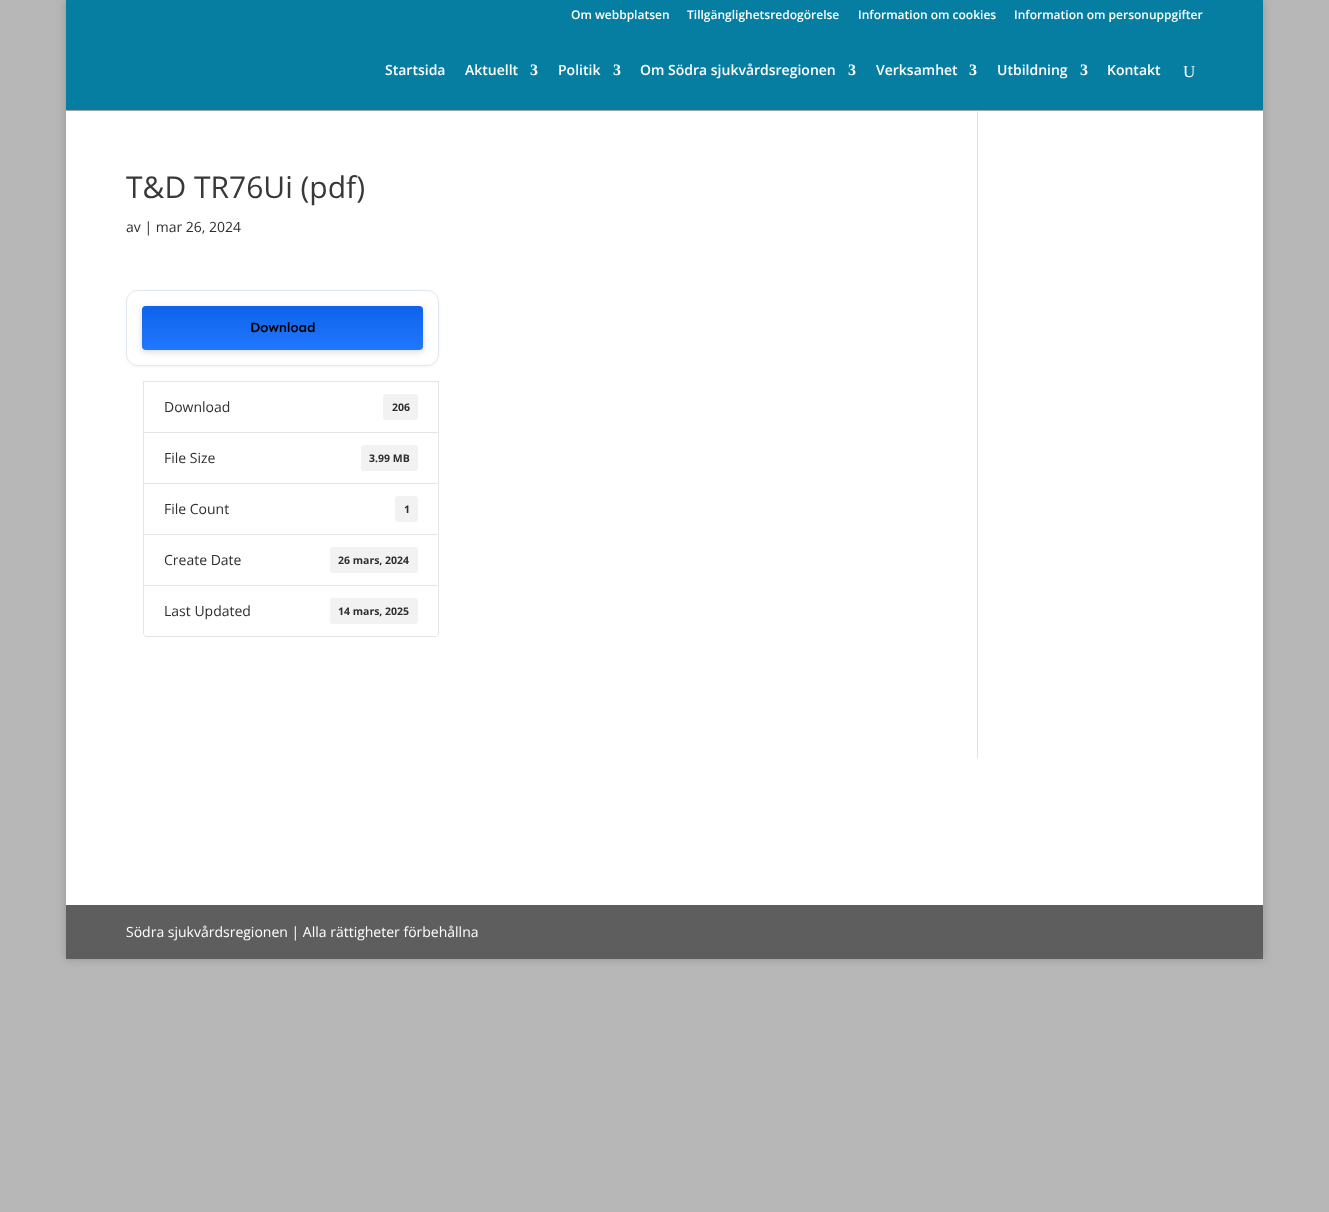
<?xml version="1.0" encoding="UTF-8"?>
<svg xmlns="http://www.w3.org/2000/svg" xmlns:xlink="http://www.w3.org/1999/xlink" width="1329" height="1212">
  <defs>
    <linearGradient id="g1" gradientUnits="userSpaceOnUse" x1="283" y1="306" x2="283" y2="350"><stop offset="0" stop-color="#000000" stop-opacity="0.08" /><stop offset="1" stop-color="#ffffff" stop-opacity="0.08" /></linearGradient>
  </defs>
  <rect width="100%" height="100%" fill="#b7b7b7" />
  <rect x="66" width="1197" height="959" fill="#000000" fill-opacity="0.2" filter="blur(5px)" />
  <rect x="66" y="110" width="1197" height="1" fill="#a5a5a5" />
  <rect x="66" width="1197" height="110" fill="#067ea2" />
  <rect x="66" y="111" width="1197" height="794" fill="#ffffff" />
  <rect x="126" y="291" width="313" height="76" rx="12" fill="#000000" fill-opacity="0.04" filter="blur(1.5px)" />
  <rect x="126.5" y="290.5" width="312" height="75" rx="11.5" fill="#ffffff" stroke="#e2e8f0" />
  <rect x="142" y="308" width="281" height="44" rx="4" fill="#000000" fill-opacity="0.15" filter="blur(3px)" />
  <rect x="142" y="306" width="281" height="44" rx="4" fill="#0f6bff" />
  <rect x="142" y="306" width="281" height="44" rx="4" fill="url(#g1)" />
  <rect x="143.5" y="381.5" width="295" height="51" fill="none" stroke="#e5e5e5" />
  <rect x="383" y="394" width="35" height="26" rx="3" fill="#f2f2f2" />
  <rect x="143.5" y="432.5" width="295" height="51" fill="none" stroke="#e5e5e5" />
  <rect x="361" y="445" width="57" height="26" rx="3" fill="#f2f2f2" />
  <rect x="143.5" y="483.5" width="295" height="51" fill="none" stroke="#e5e5e5" />
  <rect x="395" y="496" width="23" height="26" rx="3" fill="#f2f2f2" />
  <rect x="143.5" y="534.5" width="295" height="51" fill="none" stroke="#e5e5e5" />
  <rect x="330" y="547" width="88" height="26" rx="3" fill="#f2f2f2" />
  <path d="M 143.5 585.5 h 295 v 47.5 c 0 2 -1.5 3.5 -3.5 3.5 h -288 c -2 0 -3.5 -1.5 -3.5 -3.5 z" fill="#ffffff" stroke="#e5e5e5" />
  <rect x="330" y="598" width="88" height="26" rx="3" fill="#f2f2f2" />
  <rect x="977" y="111" width="1" height="647" fill="#e2e2e2" />
  <rect x="66" y="905" width="1197" height="54" fill="#5e5e5e" />
  <text x="571" y="19" style="font-family: Open Sans; font-size: 12px; font-weight: 600; fill: #ffffff">Om webbplatsen</text>
  <text x="687" y="19" style="font-family: Open Sans; font-size: 12px; font-weight: 600; fill: #ffffff">Tillgänglighetsredogörelse</text>
  <text x="858" y="19" style="font-family: Open Sans; font-size: 12px; font-weight: 600; fill: #ffffff">Information om cookies</text>
  <text x="1014" y="19" style="font-family: Open Sans; font-size: 12px; font-weight: 600; fill: #ffffff">Information om personuppgifter</text>
  <text x="385" y="75" style="font-family: Open Sans; font-size: 14px; font-weight: 600; fill: #ffffff">Startsida</text>
  <text x="465" y="75" style="font-family: Open Sans; font-size: 14px; font-weight: 600; fill: #ffffff">Aktuellt</text>
  <text x="530" y="75" style="font-family: Liberation Serif; font-size: 16px; font-weight: bold; fill: #ffffff">3</text>
  <text x="558" y="75" style="font-family: Open Sans; font-size: 14px; font-weight: 600; fill: #ffffff">Politik</text>
  <text x="613" y="75" style="font-family: Liberation Serif; font-size: 16px; font-weight: bold; fill: #ffffff">3</text>
  <text x="640" y="75" style="font-family: Open Sans; font-size: 14px; font-weight: 600; fill: #ffffff">Om Södra sjukvårdsregionen</text>
  <text x="848" y="75" style="font-family: Liberation Serif; font-size: 16px; font-weight: bold; fill: #ffffff">3</text>
  <text x="876" y="75" style="font-family: Open Sans; font-size: 14px; font-weight: 600; fill: #ffffff">Verksamhet</text>
  <text x="969" y="75" style="font-family: Liberation Serif; font-size: 16px; font-weight: bold; fill: #ffffff">3</text>
  <text x="997" y="75" style="font-family: Open Sans; font-size: 14px; font-weight: 600; fill: #ffffff">Utbildning</text>
  <text x="1080" y="75" style="font-family: Liberation Serif; font-size: 16px; font-weight: bold; fill: #ffffff">3</text>
  <text x="1107" y="75" style="font-family: Open Sans; font-size: 14px; font-weight: 600; fill: #ffffff">Kontakt</text>
  <text x="1183" y="77" style="font-family: Liberation Serif; font-size: 17px; fill: #ffffff">U</text>
  <text x="126" y="198" style="font-family: Open Sans; font-size: 30px; fill: #383838">T&amp;D TR76Ui (pdf)</text>
  <text x="126" y="232" style="font-family: Open Sans; font-size: 14px; fill: #2e2e2e">av | mar 26, 2024</text>
  <text x="250" y="332" style="font-family: Sen; font-size: 14px; font-weight: 600; letter-spacing: -0.25px; fill: #000000">Download</text>
  <text x="164" y="412" style="font-family: Open Sans; font-size: 14px; fill: #2e2e2e">Download</text>
  <text x="392" y="411" style="font-family: Open Sans; font-size: 10.5px; font-weight: bold; fill: #2e2e2e">206</text>
  <text x="164" y="463" style="font-family: Open Sans; font-size: 14px; fill: #2e2e2e">File Size</text>
  <text x="369" y="462" style="font-family: Open Sans; font-size: 10.5px; font-weight: bold; fill: #2e2e2e">3.99 MB</text>
  <text x="164" y="514" style="font-family: Open Sans; font-size: 14px; fill: #2e2e2e">File Count</text>
  <text x="404" y="513" style="font-family: Open Sans; font-size: 10.5px; font-weight: bold; fill: #2e2e2e">1</text>
  <text x="164" y="565" style="font-family: Open Sans; font-size: 14px; fill: #2e2e2e">Create Date</text>
  <text x="338" y="564" style="font-family: Open Sans; font-size: 10.5px; font-weight: bold; fill: #2e2e2e">26 mars, 2024</text>
  <text x="164" y="616" style="font-family: Open Sans; font-size: 14px; fill: #2e2e2e">Last Updated</text>
  <text x="338" y="615" style="font-family: Open Sans; font-size: 10.5px; font-weight: bold; fill: #2e2e2e">14 mars, 2025</text>
  <text x="126" y="937" style="font-family: Open Sans; font-size: 14px; fill: #ffffff">Södra sjukvårdsregionen | Alla rättigheter förbehållna</text>
</svg>
